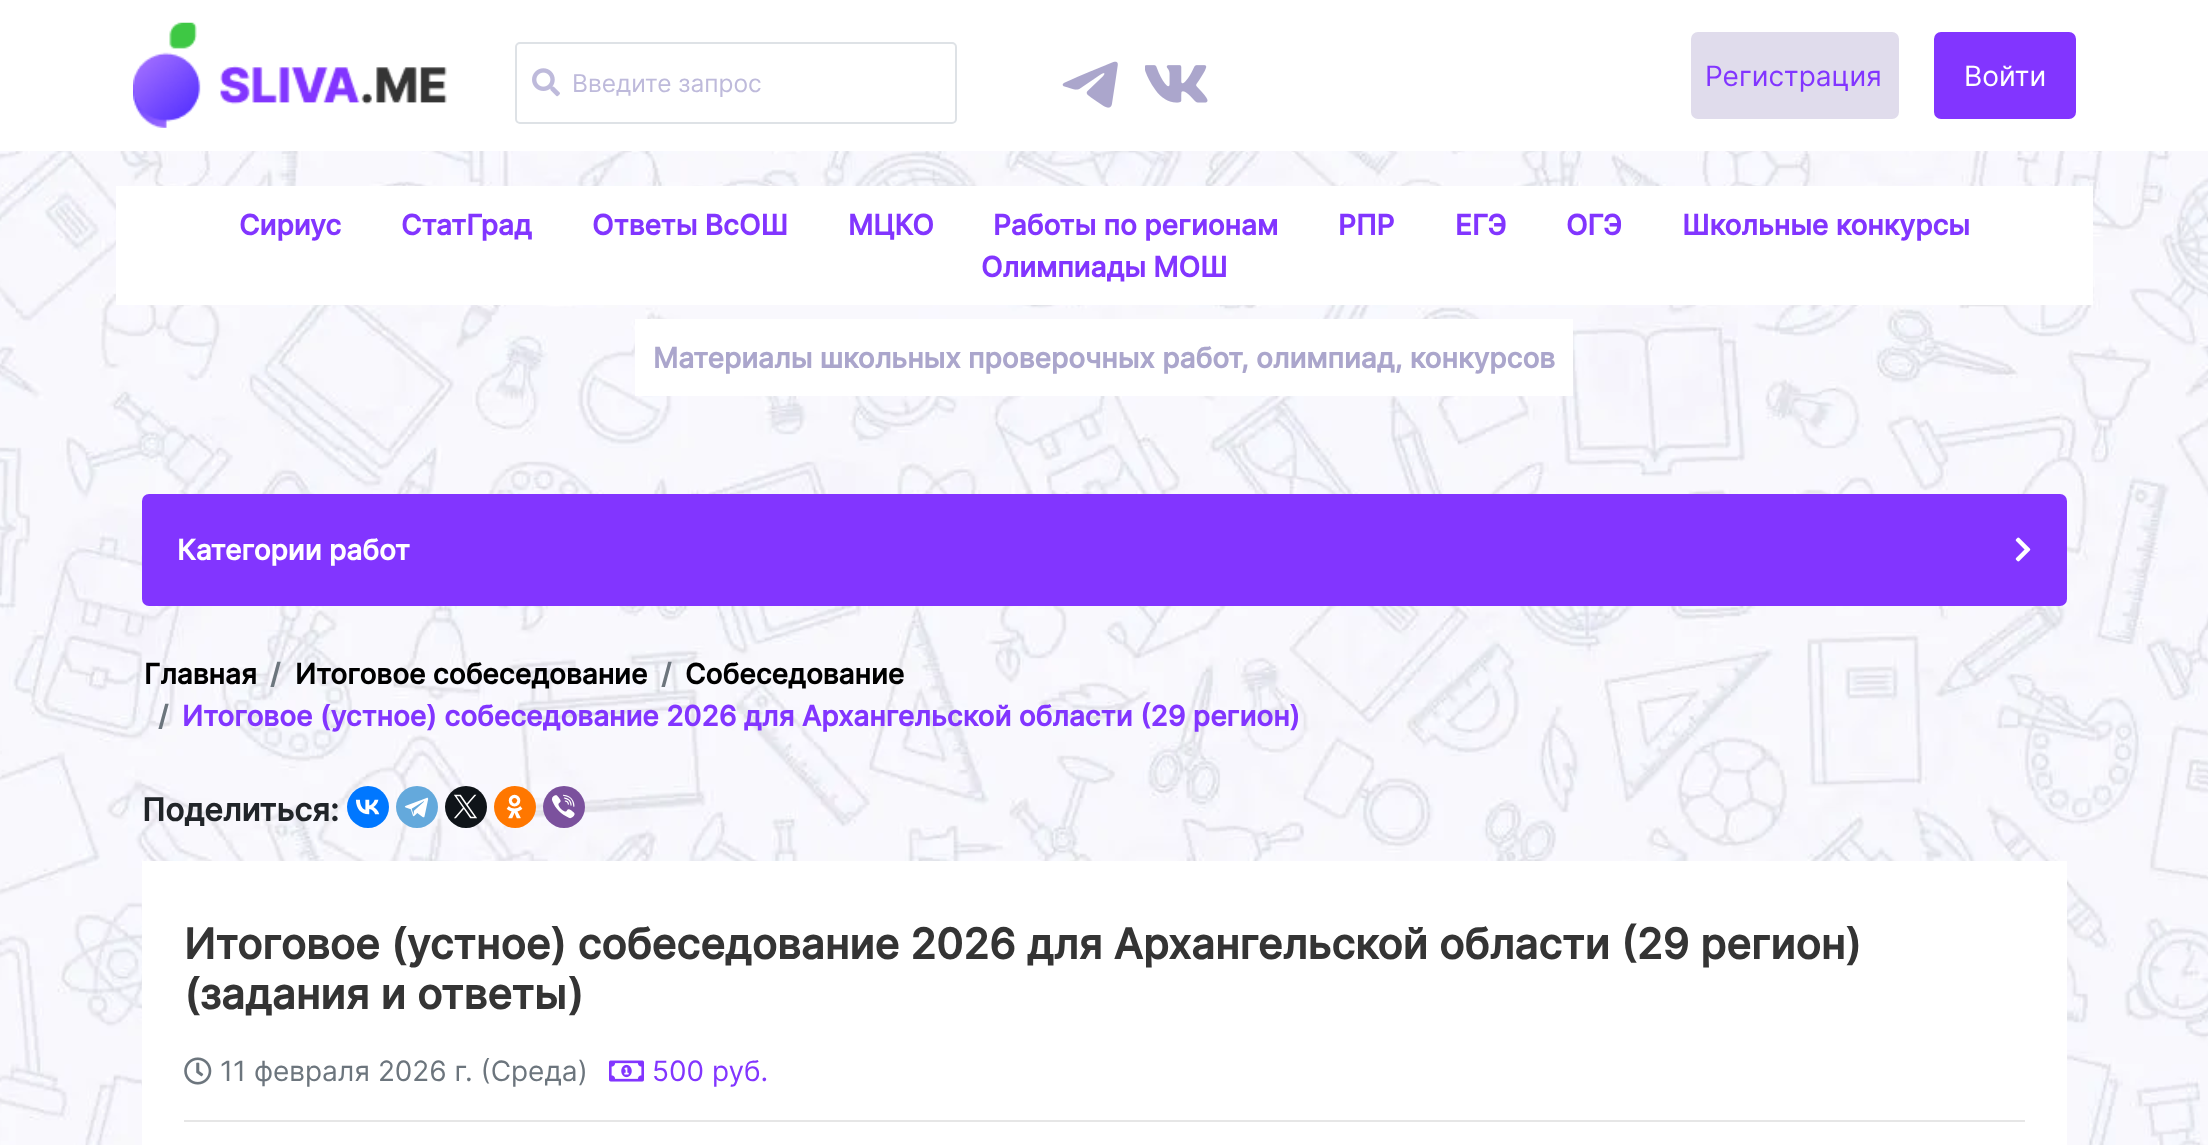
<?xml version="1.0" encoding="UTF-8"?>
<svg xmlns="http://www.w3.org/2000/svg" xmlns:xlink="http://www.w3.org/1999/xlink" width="2208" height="1145">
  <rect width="100%" height="100%" fill="#ffffff" />
  <image x="0" y="151" width="2208" height="994" xlink:href="image1.png" />
  <image x="133" y="22" width="314" height="106" xlink:href="image2.png" />
  <rect x="516" y="43" width="440" height="80" rx="4" fill="none" stroke="#dee2e6" stroke-width="2" />
  <image x="532" y="68" width="28" height="29" xlink:href="image3.png" />
  <image x="1062" y="61" width="56" height="47" xlink:href="image4.png" />
  <image x="1145" y="65" width="63" height="38" xlink:href="image5.png" />
  <rect x="1692" y="33" width="206" height="85" rx="6" fill="#e0dcec" stroke="#e0dcec" stroke-width="2" />
  <rect x="1935" y="33" width="140" height="85" rx="6" fill="#8235ff" stroke="#8235ff" stroke-width="2" />
  <rect x="116" y="186" width="1977" height="119" fill="#ffffff" />
  <rect x="635" y="319" width="938" height="77" fill="#ffffff" />
  <rect x="142" y="494" width="1925" height="112" rx="7" fill="#8235ff" />
  <image x="2015" y="537" width="16" height="25" xlink:href="image6.png" />
  <circle cx="368" cy="807" r="21" fill="#0077ff" />
  <image x="355" y="799" width="25" height="16" xlink:href="image7.png" />
  <circle cx="417" cy="807" r="21" fill="#64a9dc" />
  <image x="404" y="797" width="25" height="21" xlink:href="image8.png" />
  <circle cx="466" cy="807" r="21" fill="#0f1419" />
  <image x="454" y="794" width="23" height="25" xlink:href="image9.png" />
  <circle cx="515" cy="807" r="21" fill="#ff7700" />
  <image x="506" y="794" width="17" height="25" xlink:href="image10.png" />
  <circle cx="564" cy="807" r="21" fill="#7b519d" />
  <image x="551" y="794" width="24" height="25" xlink:href="image11.png" />
  <rect x="142" y="861" width="1925" height="284" fill="#ffffff" />
  <image x="184" y="1057" width="28" height="28" xlink:href="image12.png" />
  <image x="609" y="1060" width="35" height="22" xlink:href="image13.png" />
  <rect x="184" y="1120" width="1841" height="2" fill="#e6e6e6" />
  <text x="572" y="92" style="font-family: Inter; font-size: 24.5px; fill: #bebadb">Введите запрос</text>
  <text x="1705" y="86" style="font-family: Inter; font-size: 28px; fill: #8235ff">Регистрация</text>
  <text x="1964" y="86" style="font-family: Inter; font-size: 28px; fill: #ffffff">Войти</text>
  <text x="239" y="235" style="font-family: Inter; font-size: 28px; font-weight: bold; fill: #8235ff">Сириус</text>
  <text x="401" y="235" style="font-family: Inter; font-size: 28px; font-weight: bold; fill: #8235ff">СтатГрад</text>
  <text x="592" y="235" style="font-family: Inter; font-size: 28px; font-weight: bold; fill: #8235ff">Ответы ВсОШ</text>
  <text x="848" y="235" style="font-family: Inter; font-size: 28px; font-weight: bold; fill: #8235ff">МЦКО</text>
  <text x="993" y="235" style="font-family: Inter; font-size: 28px; font-weight: bold; fill: #8235ff">Работы по регионам</text>
  <text x="1338" y="235" style="font-family: Inter; font-size: 28px; font-weight: bold; fill: #8235ff">РПР</text>
  <text x="1455" y="235" style="font-family: Inter; font-size: 28px; font-weight: bold; fill: #8235ff">ЕГЭ</text>
  <text x="1566" y="235" style="font-family: Inter; font-size: 28px; font-weight: bold; fill: #8235ff">ОГЭ</text>
  <text x="1682" y="235" style="font-family: Inter; font-size: 28px; font-weight: bold; fill: #8235ff">Школьные конкурсы</text>
  <text x="981" y="277" style="font-family: Inter; font-size: 28px; font-weight: bold; fill: #8235ff">Олимпиады МОШ</text>
  <text x="653" y="368" style="font-family: Inter; font-size: 28px; font-weight: bold; fill: #aba6cc">Материалы школьных проверочных работ, олимпиад, конкурсов</text>
  <text x="177" y="560" style="font-family: Inter; font-size: 28px; font-weight: bold; fill: #ffffff">Категории работ</text>
  <text x="144" y="684" style="font-family: Inter; font-size: 28px; font-weight: bold; fill: #000000">Главная</text>
  <text x="270" y="684" style="font-family: Inter; font-size: 28px; font-weight: bold; fill: #6c757d">/</text>
  <text x="295" y="684" style="font-family: Inter; font-size: 28px; font-weight: bold; fill: #000000">Итоговое собеседование</text>
  <text x="661" y="684" style="font-family: Inter; font-size: 28px; font-weight: bold; fill: #6c757d">/</text>
  <text x="685" y="684" style="font-family: Inter; font-size: 28px; font-weight: bold; fill: #000000">Собеседование</text>
  <text x="158" y="726" style="font-family: Inter; font-size: 28px; font-weight: bold; fill: #6c757d">/</text>
  <text x="182" y="726" style="font-family: Inter; font-size: 28px; font-weight: bold; fill: #8235ff">Итоговое (устное) собеседование 2026 для Архангельской области (29 регион)</text>
  <text x="142" y="821" style="font-family: Inter; font-size: 31.5px; font-weight: bold; fill: #212529">Поделиться:</text>
  <text x="184" y="959" style="font-family: Inter; font-size: 42px; font-weight: bold; fill: #343434">Итоговое (устное) собеседование 2026 для Архангельской области (29 регион)</text>
  <text x="184" y="1009" style="font-family: Inter; font-size: 42px; font-weight: bold; fill: #343434">(задания и ответы)</text>
  <text x="220" y="1081" style="font-family: Inter; font-size: 28px; fill: #6c757d">11 февраля 2026 г. (Среда)</text>
  <text x="652" y="1081" style="font-family: Inter; font-size: 28px; fill: #8235ff">500 руб.</text>
</svg>
